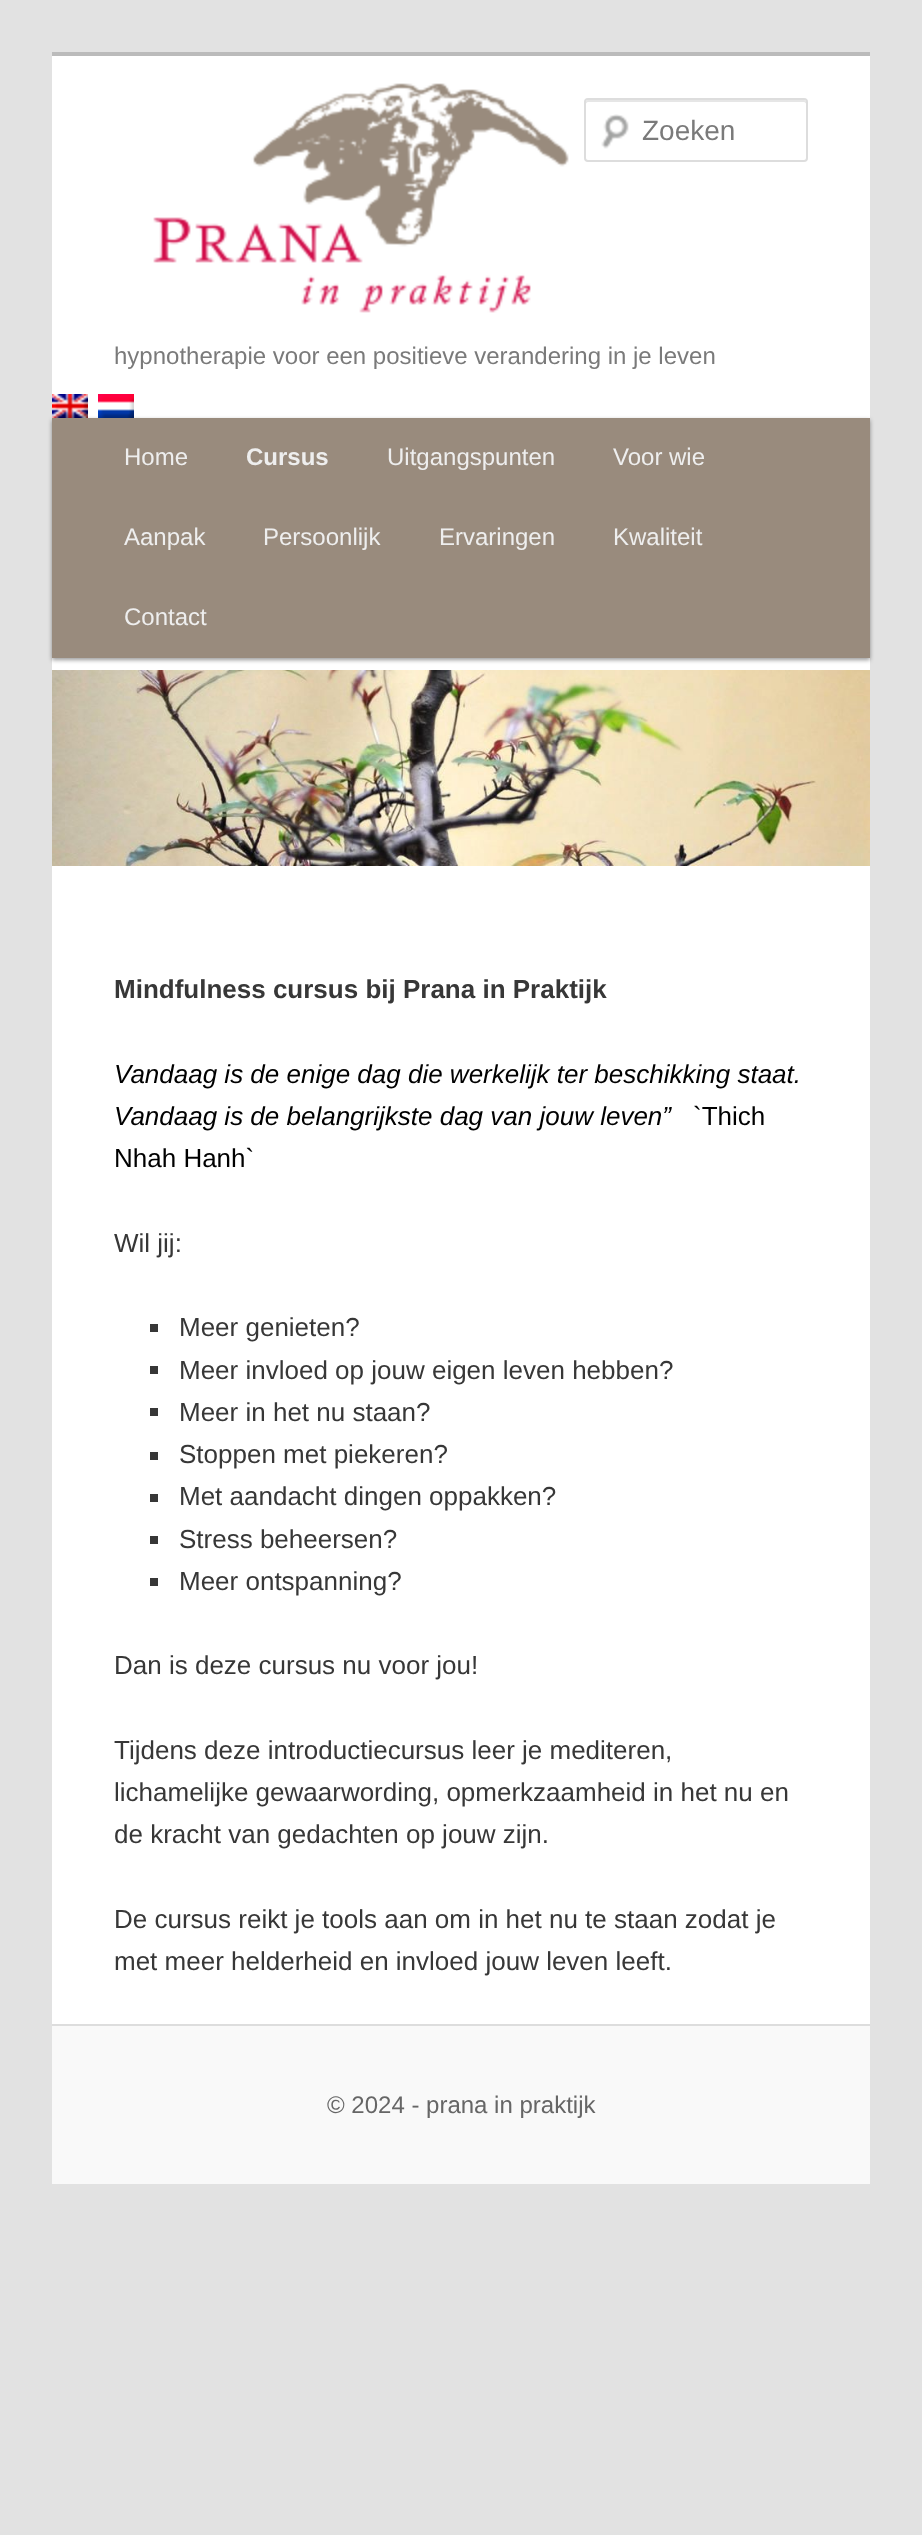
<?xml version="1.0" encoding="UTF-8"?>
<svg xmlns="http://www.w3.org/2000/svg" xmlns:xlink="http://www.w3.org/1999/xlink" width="922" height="2535">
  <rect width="100%" height="100%" fill="#e2e2e2" />
  <rect x="52" y="56" width="818" height="1968" fill="#ffffff" />
  <rect x="52" y="52" width="818" height="4" fill="#bbbbbb" />
  <image x="601" y="114" width="28" height="35" xlink:href="image1.png" />
  <path d="M 588 102 h 216 c 1 0 2 1 2 2 v -2 c 0 -1 -1 -2 -2 -2 h -216 c -1 0 -2 1 -2 2 v 2 c 0 -1 1 -2 2 -2 z" fill="#e6e6e6" />
  <rect x="585" y="99" width="222" height="62" rx="3" fill="none" stroke="#dddddd" stroke-width="2" />
  <image x="153" y="83" width="416" height="230" xlink:href="image2.png" />
  <image x="52" y="394" width="36" height="24" xlink:href="image3.png" />
  <image x="98" y="394" width="36" height="24" xlink:href="image4.png" />
  <rect x="52" y="420" width="818" height="240" fill="#000000" fill-opacity="0.4" filter="blur(2px)" />
  <rect x="52" y="418" width="818" height="240" fill="#998b7d" />
  <image x="52" y="670" width="818" height="196" xlink:href="image5.png" />
  <rect x="150" y="1324" width="8" height="8" fill="#373737" />
  <rect x="150" y="1366" width="8" height="8" fill="#373737" />
  <rect x="150" y="1408" width="8" height="8" fill="#373737" />
  <rect x="150" y="1452" width="8" height="8" fill="#373737" />
  <rect x="150" y="1494" width="8" height="8" fill="#373737" />
  <rect x="150" y="1536" width="8" height="8" fill="#373737" />
  <rect x="150" y="1578" width="8" height="8" fill="#373737" />
  <rect x="52" y="2026" width="818" height="158" fill="#f9f9f9" />
  <rect x="52" y="2024" width="818" height="2" fill="#dddddd" />
  <text x="642" y="140" style="font-family: Liberation Sans; font-size: 28px; fill: #7a7a7a">Zoeken</text>
  <text x="114" y="364" style="font-family: Liberation Sans; font-size: 24px; fill: #7a7a7a">hypnotherapie voor een positieve verandering in je leven</text>
  <text x="124" y="465" style="font-family: Liberation Sans; font-size: 24px; fill: #eeeeee">Home</text>
  <text x="246" y="465" style="font-family: Liberation Sans; font-size: 24px; font-weight: bold; fill: #eeeeee">Cursus</text>
  <text x="387" y="465" style="font-family: Liberation Sans; font-size: 24px; fill: #eeeeee">Uitgangspunten</text>
  <text x="613" y="465" style="font-family: Liberation Sans; font-size: 24px; fill: #eeeeee">Voor wie</text>
  <text x="124" y="545" style="font-family: Liberation Sans; font-size: 24px; fill: #eeeeee">Aanpak</text>
  <text x="263" y="545" style="font-family: Liberation Sans; font-size: 24px; fill: #eeeeee">Persoonlijk</text>
  <text x="439" y="545" style="font-family: Liberation Sans; font-size: 24px; fill: #eeeeee">Ervaringen</text>
  <text x="613" y="545" style="font-family: Liberation Sans; font-size: 24px; fill: #eeeeee">Kwaliteit</text>
  <text x="124" y="625" style="font-family: Liberation Sans; font-size: 24px; fill: #eeeeee">Contact</text>
  <text x="114" y="998" style="font-family: Liberation Sans; font-size: 26px; font-weight: bold; fill: #373737">Mindfulness cursus bij Prana in Praktijk</text>
  <text x="114" y="1083" style="font-family: Liberation Sans; font-size: 26px; font-style: italic; fill: #000000">Vandaag is de enige dag die werkelijk ter beschikking staat.</text>
  <text x="114" y="1125" style="font-family: Liberation Sans; font-size: 26px; font-style: italic; fill: #000000">Vandaag is de belangrijkste dag van jouw leven”</text>
  <text x="693" y="1125" style="font-family: Liberation Sans; font-size: 26px; fill: #000000">`Thich</text>
  <text x="114" y="1167" style="font-family: Liberation Sans; font-size: 26px; fill: #000000">Nhah Hanh`</text>
  <text x="114" y="1252" style="font-family: Liberation Sans; font-size: 26px; fill: #373737">Wil jij:</text>
  <text x="179" y="1336" style="font-family: Liberation Sans; font-size: 26px; fill: #373737">Meer genieten?</text>
  <text x="179" y="1379" style="font-family: Liberation Sans; font-size: 26px; fill: #373737">Meer invloed op jouw eigen leven hebben?</text>
  <text x="179" y="1421" style="font-family: Liberation Sans; font-size: 26px; fill: #373737">Meer in het nu staan?</text>
  <text x="179" y="1463" style="font-family: Liberation Sans; font-size: 26px; fill: #373737">Stoppen met piekeren?</text>
  <text x="179" y="1505" style="font-family: Liberation Sans; font-size: 26px; fill: #373737">Met aandacht dingen oppakken?</text>
  <text x="179" y="1548" style="font-family: Liberation Sans; font-size: 26px; fill: #373737">Stress beheersen?</text>
  <text x="179" y="1590" style="font-family: Liberation Sans; font-size: 26px; fill: #373737">Meer ontspanning?</text>
  <text x="114" y="1674" style="font-family: Liberation Sans; font-size: 26px; fill: #373737">Dan is deze cursus nu voor jou!</text>
  <text x="114" y="1759" style="font-family: Liberation Sans; font-size: 26px; fill: #373737">Tijdens deze introductiecursus leer je mediteren,</text>
  <text x="114" y="1801" style="font-family: Liberation Sans; font-size: 26px; fill: #373737">lichamelijke gewaarwording, opmerkzaamheid in het nu en</text>
  <text x="114" y="1843" style="font-family: Liberation Sans; font-size: 26px; fill: #373737">de kracht van gedachten op jouw zijn.</text>
  <text x="114" y="1928" style="font-family: Liberation Sans; font-size: 26px; fill: #373737">De cursus reikt je tools aan om in het nu te staan zodat je</text>
  <text x="114" y="1970" style="font-family: Liberation Sans; font-size: 26px; fill: #373737">met meer helderheid en invloed jouw leven leeft.</text>
  <text x="327" y="2113" style="font-family: Liberation Sans; font-size: 24px; fill: #666666">© 2024 - prana in praktijk</text>
</svg>
